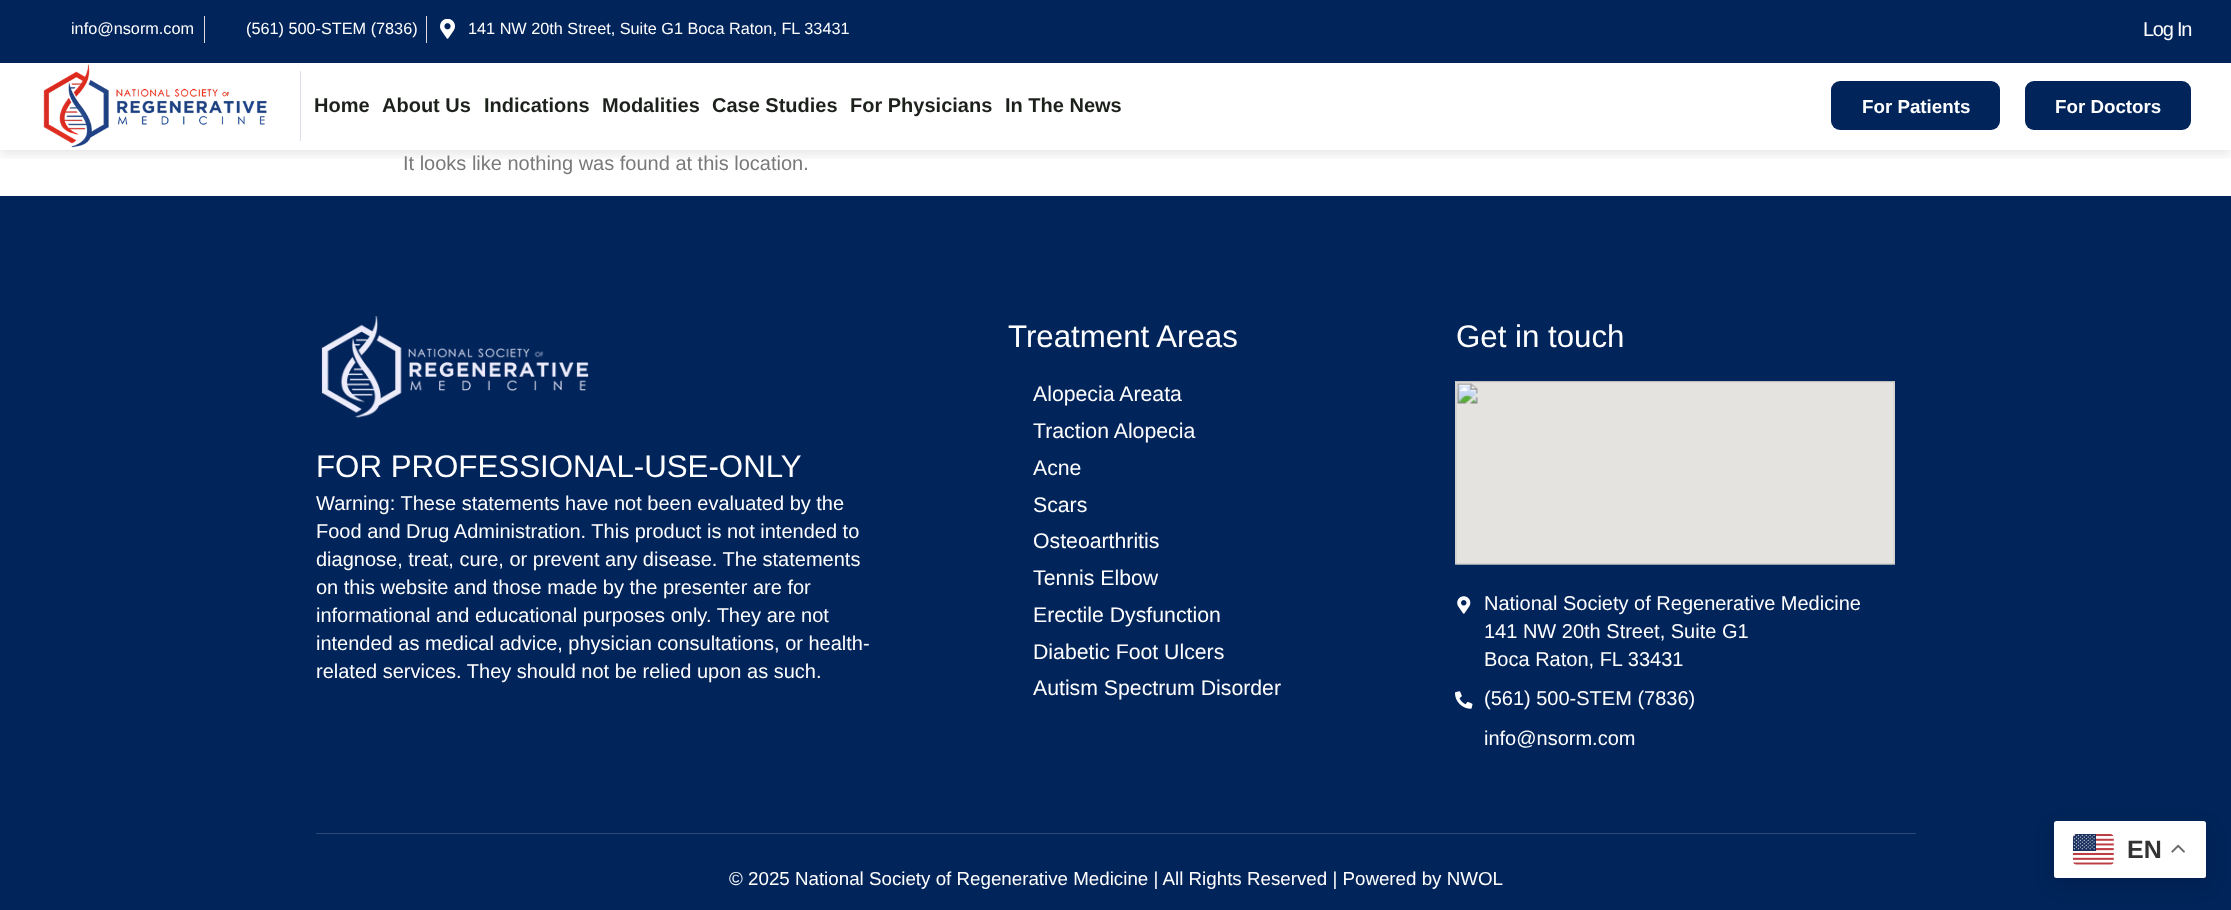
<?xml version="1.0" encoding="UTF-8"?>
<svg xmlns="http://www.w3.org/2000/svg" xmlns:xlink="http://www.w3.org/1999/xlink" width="2231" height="910">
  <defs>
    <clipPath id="clip1"><rect x="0" y="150" width="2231" height="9" /></clipPath>
  </defs>
  <rect width="100%" height="100%" fill="#ffffff" />
  <g clip-path="url(#clip1)">
    <rect width="2231" height="154" fill="#000000" fill-opacity="0.1" filter="blur(6px)" />
  </g>
  <rect width="2231" height="63" fill="#01245a" />
  <rect x="204" y="16" width="1" height="27" fill="#dddddd" />
  <rect x="426" y="16" width="1" height="27" fill="#dddddd" />
  <image x="440" y="19" width="15" height="20" xlink:href="image1.png" />
  <image x="43" y="64" width="224" height="84" xlink:href="image2.png" />
  <rect x="300" y="71" width="1" height="70" fill="#dcdde8" />
  <rect x="1831" y="81" width="169" height="49" rx="9" fill="#01245a" />
  <rect x="2025" y="81" width="166" height="49" rx="9" fill="#01245a" />
  <rect y="196" width="2231" height="714" fill="#01245a" />
  <image x="321" y="316" width="268" height="102" xlink:href="image3.png" />
  <image x="1455" y="381" width="440" height="184" xlink:href="image4.png" />
  <image x="1457" y="596" width="14" height="18" xlink:href="image5.png" />
  <image x="1455" y="691" width="18" height="18" xlink:href="image6.png" />
  <rect x="316" y="833" width="1600" height="1" fill="#2c4976" />
  <rect x="2054" y="828" width="152" height="56" rx="2.5" fill="#000000" fill-opacity="0.15" filter="blur(9.5px)" />
  <rect x="2054" y="821" width="152" height="57" rx="2.5" fill="#ffffff" />
  <image x="2073" y="834" width="41" height="31" xlink:href="image7.png" />
  <image x="2171" y="844" width="14" height="9" xlink:href="image8.png" />
  <text x="71" y="34" style="font-family: Liberation Sans; font-size: 16.25px; fill: #ffffff">info@nsorm.com</text>
  <text x="246" y="34" style="font-family: Liberation Sans; font-size: 16.25px; fill: #ffffff">(561) 500-STEM (7836)</text>
  <text x="468" y="34" style="font-family: Liberation Sans; font-size: 16.25px; fill: #ffffff">141 NW 20th Street, Suite G1 Boca Raton, FL 33431</text>
  <text x="2143" y="36" style="font-family: Liberation Sans; font-size: 20px; letter-spacing: -1.25px; fill: #ffffff">Log In</text>
  <text x="314" y="112" style="font-family: Liberation Sans; font-size: 20px; font-weight: bold; fill: #1d211c">Home</text>
  <text x="382" y="112" style="font-family: Liberation Sans; font-size: 20px; font-weight: bold; fill: #1d211c">About Us</text>
  <text x="484" y="112" style="font-family: Liberation Sans; font-size: 20px; font-weight: bold; fill: #1d211c">Indications</text>
  <text x="602" y="112" style="font-family: Liberation Sans; font-size: 20px; font-weight: bold; fill: #1d211c">Modalities</text>
  <text x="712" y="112" style="font-family: Liberation Sans; font-size: 20px; font-weight: bold; fill: #1d211c">Case Studies</text>
  <text x="850" y="112" style="font-family: Liberation Sans; font-size: 20px; font-weight: bold; fill: #1d211c">For Physicians</text>
  <text x="1005" y="112" style="font-family: Liberation Sans; font-size: 20px; font-weight: bold; fill: #1d211c">In The News</text>
  <text x="1862" y="113" style="font-family: Liberation Sans; font-size: 18.75px; font-weight: bold; fill: #ffffff">For Patients</text>
  <text x="2055" y="113" style="font-family: Liberation Sans; font-size: 18.75px; font-weight: bold; fill: #ffffff">For Doctors</text>
  <text x="403" y="170" style="font-family: Liberation Sans; font-size: 20px; fill: #797979">It looks like nothing was found at this location.</text>
  <text x="316" y="477" style="font-family: Liberation Sans; font-size: 31.25px; fill: #ffffff">FOR PROFESSIONAL-USE-ONLY</text>
  <text x="316" y="510" style="font-family: Liberation Sans; font-size: 20px; fill: #ffffff">Warning: These statements have not been evaluated by the</text>
  <text x="316" y="538" style="font-family: Liberation Sans; font-size: 20px; fill: #ffffff">Food and Drug Administration. This product is not intended to</text>
  <text x="316" y="566" style="font-family: Liberation Sans; font-size: 20px; fill: #ffffff">diagnose, treat, cure, or prevent any disease. The statements</text>
  <text x="316" y="594" style="font-family: Liberation Sans; font-size: 20px; fill: #ffffff">on this website and those made by the presenter are for</text>
  <text x="316" y="622" style="font-family: Liberation Sans; font-size: 20px; fill: #ffffff">informational and educational purposes only. They are not</text>
  <text x="316" y="650" style="font-family: Liberation Sans; font-size: 20px; fill: #ffffff">intended as medical advice, physician consultations, or health-</text>
  <text x="316" y="678" style="font-family: Liberation Sans; font-size: 20px; fill: #ffffff">related services. They should not be relied upon as such.</text>
  <text x="1008" y="347" style="font-family: Liberation Sans; font-size: 31.25px; fill: #ffffff">Treatment Areas</text>
  <text x="1033" y="401" style="font-family: Liberation Sans; font-size: 21.25px; fill: #ffffff">Alopecia Areata</text>
  <text x="1033" y="438" style="font-family: Liberation Sans; font-size: 21.25px; fill: #ffffff">Traction Alopecia</text>
  <text x="1033" y="475" style="font-family: Liberation Sans; font-size: 21.25px; fill: #ffffff">Acne</text>
  <text x="1033" y="512" style="font-family: Liberation Sans; font-size: 21.25px; fill: #ffffff">Scars</text>
  <text x="1033" y="548" style="font-family: Liberation Sans; font-size: 21.25px; fill: #ffffff">Osteoarthritis</text>
  <text x="1033" y="585" style="font-family: Liberation Sans; font-size: 21.25px; fill: #ffffff">Tennis Elbow</text>
  <text x="1033" y="622" style="font-family: Liberation Sans; font-size: 21.25px; fill: #ffffff">Erectile Dysfunction</text>
  <text x="1033" y="659" style="font-family: Liberation Sans; font-size: 21.25px; fill: #ffffff">Diabetic Foot Ulcers</text>
  <text x="1033" y="695" style="font-family: Liberation Sans; font-size: 21.25px; fill: #ffffff">Autism Spectrum Disorder</text>
  <text x="1456" y="347" style="font-family: Liberation Sans; font-size: 31.25px; fill: #ffffff">Get in touch</text>
  <text x="1484" y="610" style="font-family: Liberation Sans; font-size: 20px; fill: #ffffff">National Society of Regenerative Medicine</text>
  <text x="1484" y="638" style="font-family: Liberation Sans; font-size: 20px; fill: #ffffff">141 NW 20th Street, Suite G1</text>
  <text x="1484" y="666" style="font-family: Liberation Sans; font-size: 20px; fill: #ffffff">Boca Raton, FL 33431</text>
  <text x="1484" y="705" style="font-family: Liberation Sans; font-size: 20px; fill: #ffffff">(561) 500-STEM (7836)</text>
  <text x="1484" y="745" style="font-family: Liberation Sans; font-size: 20px; fill: #ffffff">info@nsorm.com</text>
  <text x="729" y="885" style="font-family: Liberation Sans; font-size: 18.75px; fill: #ffffff">© 2025 National Society of Regenerative Medicine | All Rights Reserved | Powered by NWOL</text>
  <text x="2127" y="858" style="font-family: Liberation Sans; font-size: 25px; font-weight: bold; fill: #333333">EN</text>
</svg>
